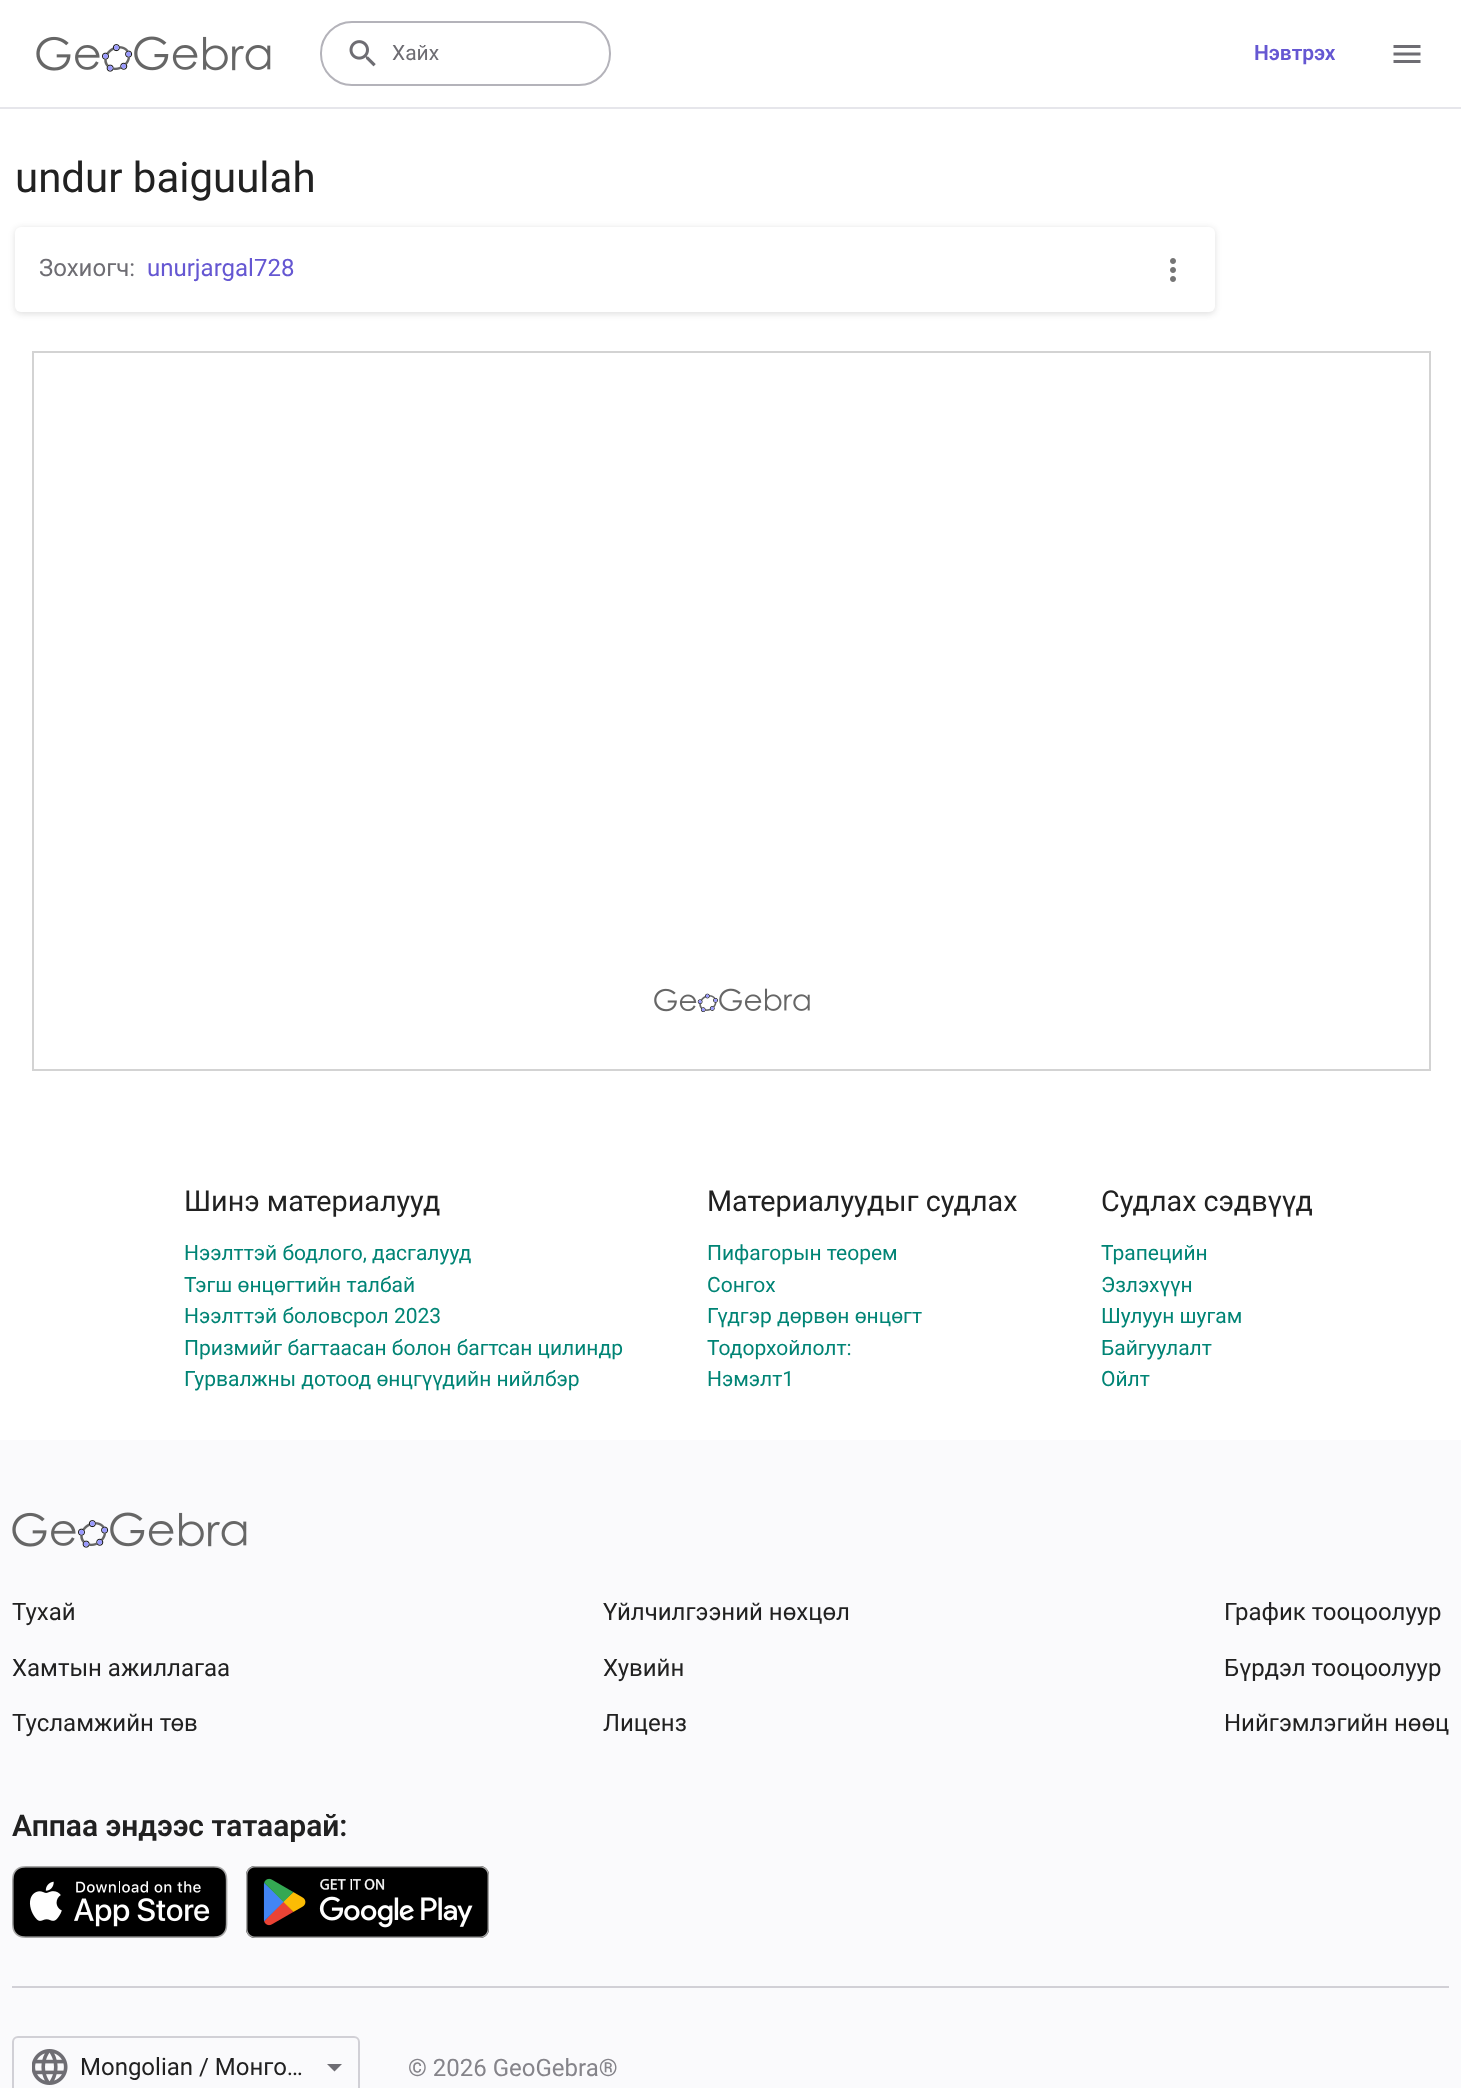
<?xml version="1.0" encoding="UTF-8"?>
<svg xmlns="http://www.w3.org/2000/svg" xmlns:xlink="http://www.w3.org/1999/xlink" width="1461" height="2088">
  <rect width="100%" height="100%" fill="#ffffff" />
  <rect y="107" width="1461" height="2" fill="#e6e6eb" />
  <image x="36" y="36" width="235" height="36" xlink:href="image1.png" />
  <rect x="321" y="22" width="289" height="63" rx="31" fill="none" stroke="#b4b3ba" stroke-width="2" />
  <image x="349" y="40" width="27" height="27" xlink:href="image2.png" />
  <image x="1393" y="45" width="28" height="18" xlink:href="image3.png" />
  <rect x="15" y="228" width="1200" height="86" rx="6" fill="#1c1c1f" fill-opacity="0.14" filter="blur(3px)" />
  <rect x="15" y="227" width="1200" height="85" rx="6" fill="#ffffff" />
  <image x="1170" y="258" width="6" height="24" xlink:href="image4.png" />
  <image x="654" y="988" width="156" height="24" xlink:href="image5.png" />
  <rect x="33" y="352" width="1397" height="718" fill="none" stroke="#d3d3d3" stroke-width="2" />
  <rect y="1440" width="1461" height="648" fill="#fafafc" />
  <image x="12" y="1512" width="235" height="36" xlink:href="image6.png" />
  <image x="12" y="1866" width="216" height="72" xlink:href="image7.png" />
  <image x="246" y="1866" width="243" height="72" xlink:href="image8.png" />
  <rect x="12" y="1986" width="1437" height="2" fill="#d1d0d6" />
  <rect x="13" y="2037" width="346" height="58" rx="5" fill="none" stroke="#d1d0d6" stroke-width="2" />
  <image x="32" y="2049" width="36" height="36" xlink:href="image9.png" />
  <path d="M 327 2064 l 7.5 7.5 l 7.5 -7.5 z" fill="#6e6d73" />
  <text x="392" y="60" style="font-family: Roboto; font-size: 21px; fill: #6e6d73">Хайх</text>
  <text x="1254" y="60" style="font-family: Roboto; font-size: 21px; font-weight: 600; fill: #6557d2">Нэвтрэх</text>
  <text x="15" y="192" style="font-family: Roboto; font-size: 42px; fill: #212121">undur baiguulah</text>
  <text x="39" y="276" style="font-family: Roboto; font-size: 24px; fill: #6e6d73">Зохиогч:</text>
  <text x="147" y="276" style="font-family: Roboto; font-size: 24px; fill: #6557d2">unurjargal728</text>
  <text x="184" y="1211" style="font-family: Roboto; font-size: 28.75px; fill: #212121">Шинэ материалууд</text>
  <text x="184" y="1260" style="font-family: Roboto; font-size: 21px; fill: #008475">Нээлттэй бодлого, дасгалууд</text>
  <text x="184" y="1292" style="font-family: Roboto; font-size: 21px; fill: #008475">Тэгш өнцөгтийн талбай</text>
  <text x="184" y="1323" style="font-family: Roboto; font-size: 21px; fill: #008475">Нээлттэй боловсрол 2023</text>
  <text x="184" y="1355" style="font-family: Roboto; font-size: 21px; fill: #008475">Призмийг багтаасан болон багтсан цилиндр</text>
  <text x="184" y="1386" style="font-family: Roboto; font-size: 21px; fill: #008475">Гурвалжны дотоод өнцгүүдийн нийлбэр</text>
  <text x="707" y="1211" style="font-family: Roboto; font-size: 28.75px; fill: #212121">Материалуудыг судлах</text>
  <text x="707" y="1260" style="font-family: Roboto; font-size: 21px; fill: #008475">Пифагорын теорем</text>
  <text x="707" y="1292" style="font-family: Roboto; font-size: 21px; fill: #008475">Сонгох</text>
  <text x="707" y="1323" style="font-family: Roboto; font-size: 21px; fill: #008475">Гүдгэр дөрвөн өнцөгт</text>
  <text x="707" y="1355" style="font-family: Roboto; font-size: 21px; fill: #008475">Тодорхойлолт:</text>
  <text x="707" y="1386" style="font-family: Roboto; font-size: 21px; fill: #008475">Нэмэлт1</text>
  <text x="1101" y="1211" style="font-family: Roboto; font-size: 28.75px; fill: #212121">Судлах сэдвүүд</text>
  <text x="1101" y="1260" style="font-family: Roboto; font-size: 21px; fill: #008475">Трапецийн</text>
  <text x="1101" y="1292" style="font-family: Roboto; font-size: 21px; fill: #008475">Эзлэхүүн</text>
  <text x="1101" y="1323" style="font-family: Roboto; font-size: 21px; fill: #008475">Шулуун шугам</text>
  <text x="1101" y="1355" style="font-family: Roboto; font-size: 21px; fill: #008475">Байгуулалт</text>
  <text x="1101" y="1386" style="font-family: Roboto; font-size: 21px; fill: #008475">Ойлт</text>
  <text x="12" y="1620" style="font-family: Roboto; font-size: 24px; fill: #212121">Тухай</text>
  <text x="12" y="1676" style="font-family: Roboto; font-size: 24px; fill: #212121">Хамтын ажиллагаа</text>
  <text x="12" y="1731" style="font-family: Roboto; font-size: 24px; fill: #212121">Тусламжийн төв</text>
  <text x="603" y="1620" style="font-family: Roboto; font-size: 24px; fill: #212121">Үйлчилгээний нөхцөл</text>
  <text x="603" y="1676" style="font-family: Roboto; font-size: 24px; fill: #212121">Хувийн</text>
  <text x="603" y="1731" style="font-family: Roboto; font-size: 24px; fill: #212121">Лиценз</text>
  <text x="1224" y="1620" style="font-family: Roboto; font-size: 24px; fill: #212121">График тооцоолуур</text>
  <text x="1224" y="1676" style="font-family: Roboto; font-size: 24px; fill: #212121">Бүрдэл тооцоолуур</text>
  <text x="1224" y="1731" style="font-family: Roboto; font-size: 24px; fill: #212121">Нийгэмлэгийн нөөц</text>
  <text x="12" y="1836" style="font-family: Roboto; font-size: 30px; font-weight: 600; fill: #212121">Аппаа эндээс татаарай:</text>
  <text x="80" y="2075" style="font-family: Roboto; font-size: 24px; fill: #212121">Mongolian / Монго…</text>
  <text x="408" y="2076" style="font-family: Roboto; font-size: 24px; fill: #85848a">© 2026 GeoGebra®</text>
</svg>
